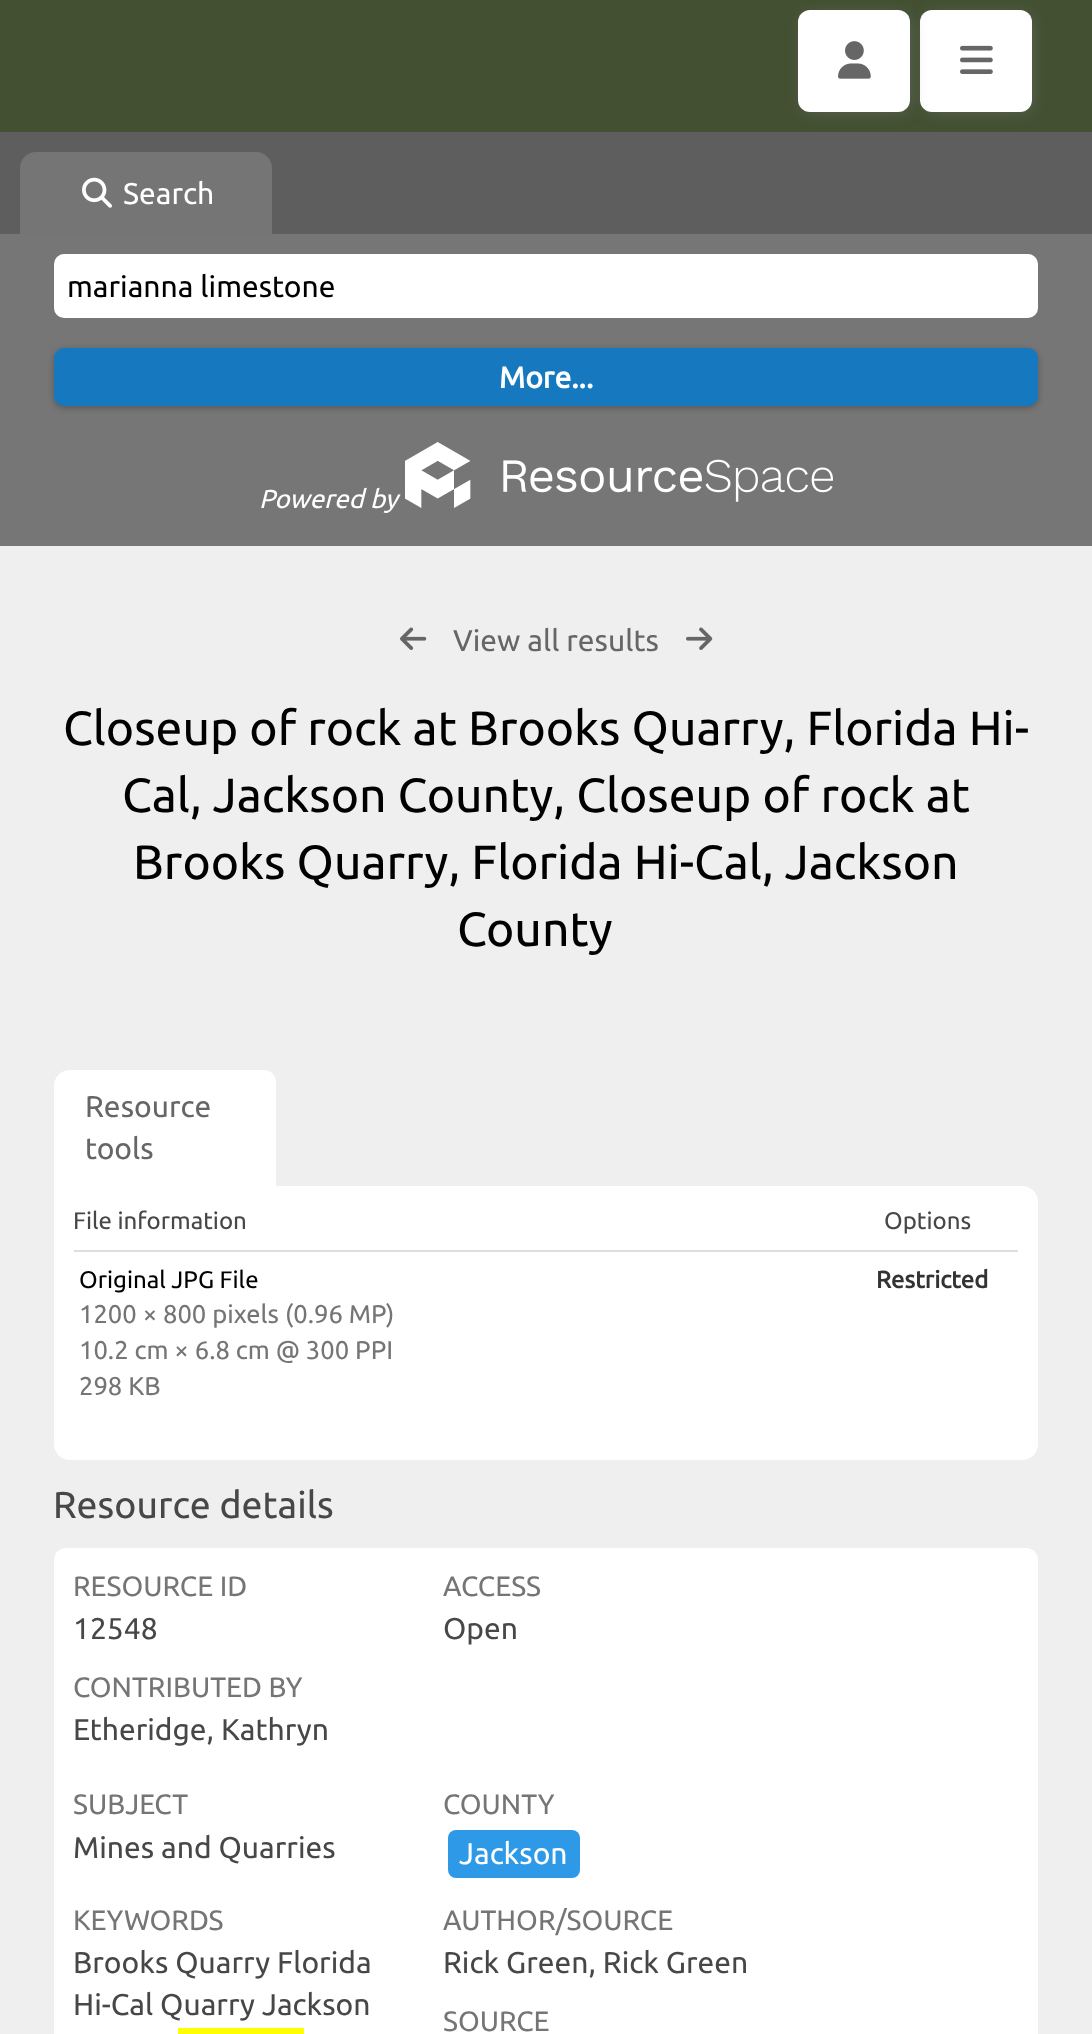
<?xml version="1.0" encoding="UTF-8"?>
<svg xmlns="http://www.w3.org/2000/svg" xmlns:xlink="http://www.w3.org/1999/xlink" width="1092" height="2034">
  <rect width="100%" height="100%" fill="#efefef" />
  <rect width="1092" height="132" fill="#435132" />
  <rect y="132" width="1092" height="102" fill="#5e5e5e" />
  <rect x="926" y="16" width="104" height="94" rx="8" fill="#666666" filter="blur(8px)" />
  <rect x="920" y="10" width="112" height="102" rx="12" fill="#ffffff" />
  <rect x="804" y="16" width="104" height="94" rx="8" fill="#666666" filter="blur(8px)" />
  <rect x="798" y="10" width="112" height="102" rx="12" fill="#ffffff" />
  <image x="838" y="41" width="33" height="38" xlink:href="image1.png" />
  <image x="960" y="45" width="33" height="29" xlink:href="image2.png" />
  <rect y="234" width="1092" height="312" fill="#767676" />
  <path d="M 36 152 h 220 c 9 0 16 7 16 16 v 66 h -252 v -66 c 0 -9 7 -16 16 -16 z" fill="#757575" />
  <image x="82" y="177" width="30" height="31" xlink:href="image3.png" />
  <rect x="54" y="254" width="984" height="64" rx="10" fill="#ffffff" />
  <rect x="54" y="350" width="984" height="58" rx="10" fill="#000000" fill-opacity="0.25" filter="blur(3px)" />
  <rect x="54" y="348" width="984" height="58" rx="10" fill="#1679c0" />
  <image x="405" y="442" width="428" height="66" xlink:href="image4.png" />
  <image x="400" y="627" width="27" height="23" xlink:href="image5.png" />
  <image x="686" y="627" width="27" height="23" xlink:href="image6.png" />
  <path d="M 70 1070 h 194 c 6.5 0 12 5.5 12 12 v 106 h -222 v -102 c 0 -9 7 -16 16 -16 z" fill="#ffffff" />
  <path d="M 54 1186 h 968 c 9 0 16 7 16 16 v 242 c 0 9 -7 16 -16 16 h -952 c -9 0 -16 -7 -16 -16 z" fill="#ffffff" />
  <rect x="74" y="1250" width="944" height="2" fill="#dddddd" />
  <rect x="54" y="1548" width="984" height="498" rx="12" fill="#ffffff" />
  <rect x="448" y="1830" width="132" height="48" rx="8" fill="#2e99e6" />
  <rect x="178" y="2028" width="126" height="6" fill="#ffff00" />
  <text x="123" y="204" style="font-family: Ubuntu; font-size: 30px; fill: #ffffff">Search</text>
  <text x="67" y="297" style="font-family: Ubuntu; font-size: 30px; fill: #000000">marianna limestone</text>
  <text x="499" y="388" style="font-family: Ubuntu; font-size: 30px; font-weight: bold; fill: #ffffff">More...</text>
  <text x="259" y="508" style="font-family: Ubuntu; font-size: 26px; font-style: italic; fill: #ffffff">Powered by</text>
  <text x="453" y="651" style="font-family: Ubuntu; font-size: 30px; fill: #666666">View all results</text>
  <text x="63" y="745" style="font-family: Ubuntu; font-size: 48px; fill: #000000">Closeup of rock at Brooks Quarry, Florida Hi-</text>
  <text x="122" y="812" style="font-family: Ubuntu; font-size: 48px; fill: #000000">Cal, Jackson County, Closeup of rock at</text>
  <text x="133" y="879" style="font-family: Ubuntu; font-size: 48px; fill: #000000">Brooks Quarry, Florida Hi-Cal, Jackson</text>
  <text x="457" y="946" style="font-family: Ubuntu; font-size: 48px; fill: #000000">County</text>
  <text x="85" y="1117" style="font-family: Ubuntu; font-size: 30px; fill: #666666">Resource</text>
  <text x="85" y="1159" style="font-family: Ubuntu; font-size: 30px; fill: #666666">tools</text>
  <text x="73" y="1229" style="font-family: Ubuntu; font-size: 24px; fill: #474747">File information</text>
  <text x="884" y="1229" style="font-family: Ubuntu; font-size: 24px; fill: #474747">Options</text>
  <text x="79" y="1288" style="font-family: Ubuntu; font-size: 24px; fill: #000000">Original JPG File</text>
  <text x="79" y="1323" style="font-family: Ubuntu; font-size: 25.6px; fill: #757575">1200 × 800 pixels (0.96 MP)</text>
  <text x="79" y="1359" style="font-family: Ubuntu; font-size: 25.6px; fill: #757575">10.2 cm × 6.8 cm @ 300 PPI</text>
  <text x="79" y="1395" style="font-family: Ubuntu; font-size: 25.6px; fill: #757575">298 KB</text>
  <text x="876" y="1288" style="font-family: Ubuntu; font-size: 24px; font-weight: bold; fill: #333333">Restricted</text>
  <text x="53" y="1518" style="font-family: Ubuntu; font-size: 37.5px; fill: #474747">Resource details</text>
  <text x="73" y="1596" style="font-family: Ubuntu; font-size: 28px; fill: #757575">RESOURCE ID</text>
  <text x="73" y="1639" style="font-family: Ubuntu; font-size: 30px; fill: #474747">12548</text>
  <text x="443" y="1596" style="font-family: Ubuntu; font-size: 28px; fill: #757575">ACCESS</text>
  <text x="443" y="1639" style="font-family: Ubuntu; font-size: 30px; fill: #474747">Open</text>
  <text x="73" y="1697" style="font-family: Ubuntu; font-size: 28px; fill: #757575">CONTRIBUTED BY</text>
  <text x="73" y="1740" style="font-family: Ubuntu; font-size: 30px; fill: #474747">Etheridge, Kathryn</text>
  <text x="73" y="1814" style="font-family: Ubuntu; font-size: 28px; fill: #757575">SUBJECT</text>
  <text x="73" y="1858" style="font-family: Ubuntu; font-size: 30px; fill: #474747">Mines and Quarries</text>
  <text x="443" y="1814" style="font-family: Ubuntu; font-size: 28px; fill: #757575">COUNTY</text>
  <text x="459" y="1864" style="font-family: Ubuntu; font-size: 30px; fill: #ffffff">Jackson</text>
  <text x="73" y="1930" style="font-family: Ubuntu; font-size: 28px; fill: #757575">KEYWORDS</text>
  <text x="73" y="1973" style="font-family: Ubuntu; font-size: 30px; fill: #474747">Brooks Quarry Florida</text>
  <text x="73" y="2015" style="font-family: Ubuntu; font-size: 30px; fill: #474747">Hi-Cal Quarry Jackson</text>
  <text x="443" y="1930" style="font-family: Ubuntu; font-size: 28px; fill: #757575">AUTHOR/SOURCE</text>
  <text x="443" y="1973" style="font-family: Ubuntu; font-size: 30px; fill: #474747">Rick Green, Rick Green</text>
  <text x="443" y="2031" style="font-family: Ubuntu; font-size: 28px; fill: #757575">SOURCE</text>
</svg>
